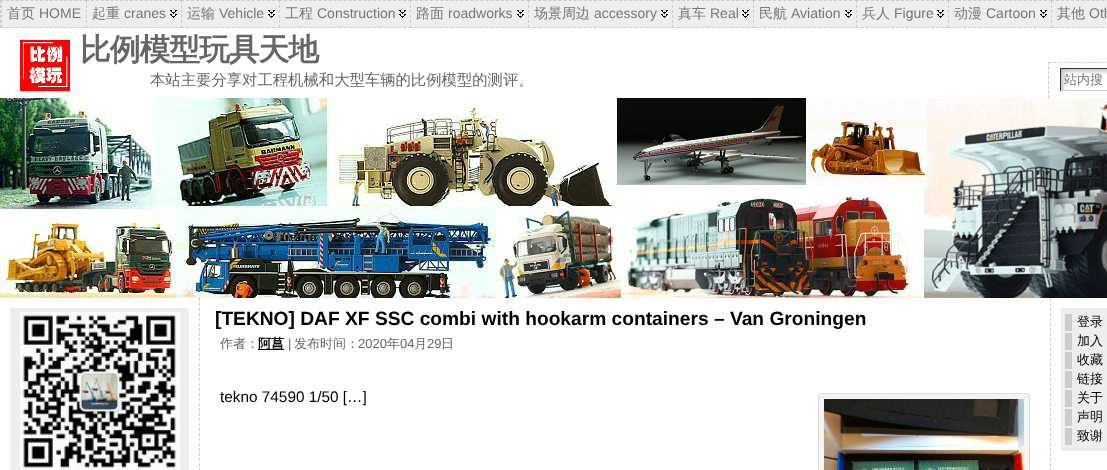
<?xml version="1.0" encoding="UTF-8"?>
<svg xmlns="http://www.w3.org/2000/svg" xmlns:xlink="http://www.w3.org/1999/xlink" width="1107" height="470">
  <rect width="100%" height="100%" fill="#ffffff" />
  <rect y="3" width="1" height="22" fill="#eeeeee" />
  <path d="M 0.5 0 v 28" fill="none" stroke="#cccccc" stroke-dasharray="3 2" />
  <rect x="1" width="85" height="28" fill="#eeeeee" />
  <path d="M 1 0.5 h 86" fill="none" stroke="#cccccc" stroke-dasharray="3 1.88" />
  <path d="M 1 27.5 h 86" fill="none" stroke="#cccccc" stroke-dasharray="3 1.88" />
  <path d="M 1.5 0 v 28" fill="none" stroke="#cccccc" stroke-dasharray="3 2" />
  <rect x="86" width="95" height="28" fill="#eeeeee" />
  <image x="170" y="10" width="7" height="8" xlink:href="image1.png" />
  <path d="M 86 0.5 h 96" fill="none" stroke="#cccccc" stroke-dasharray="3 1.89" />
  <path d="M 86 27.5 h 96" fill="none" stroke="#cccccc" stroke-dasharray="3 1.89" />
  <path d="M 86.5 0 v 28" fill="none" stroke="#cccccc" stroke-dasharray="3 2" />
  <rect x="181" width="98" height="28" fill="#eeeeee" />
  <image x="268" y="10" width="7" height="8" xlink:href="image1.png" />
  <path d="M 181 0.5 h 99" fill="none" stroke="#cccccc" stroke-dasharray="3 2.05" />
  <path d="M 181 27.5 h 99" fill="none" stroke="#cccccc" stroke-dasharray="3 2.05" />
  <path d="M 181.5 0 v 28" fill="none" stroke="#cccccc" stroke-dasharray="3 2" />
  <rect x="279" width="131" height="28" fill="#eeeeee" />
  <image x="399" y="10" width="7" height="8" xlink:href="image1.png" />
  <path d="M 279 0.5 h 132" fill="none" stroke="#cccccc" stroke-dasharray="3 1.96" />
  <path d="M 279 27.5 h 132" fill="none" stroke="#cccccc" stroke-dasharray="3 1.96" />
  <path d="M 279.5 0 v 28" fill="none" stroke="#cccccc" stroke-dasharray="3 2" />
  <rect x="410" width="118" height="28" fill="#eeeeee" />
  <image x="517" y="10" width="7" height="8" xlink:href="image1.png" />
  <path d="M 410 0.5 h 119" fill="none" stroke="#cccccc" stroke-dasharray="3 2.04" />
  <path d="M 410 27.5 h 119" fill="none" stroke="#cccccc" stroke-dasharray="3 2.04" />
  <path d="M 410.5 0 v 28" fill="none" stroke="#cccccc" stroke-dasharray="3 2" />
  <rect x="528" width="144" height="28" fill="#eeeeee" />
  <image x="661" y="10" width="7" height="8" xlink:href="image1.png" />
  <path d="M 528 0.5 h 145" fill="none" stroke="#cccccc" stroke-dasharray="3 2.07" />
  <path d="M 528 27.5 h 145" fill="none" stroke="#cccccc" stroke-dasharray="3 2.07" />
  <path d="M 528.5 0 v 28" fill="none" stroke="#cccccc" stroke-dasharray="3 2" />
  <rect x="672" width="81" height="28" fill="#eeeeee" />
  <image x="742" y="10" width="7" height="8" xlink:href="image1.png" />
  <path d="M 672 0.5 h 82" fill="none" stroke="#cccccc" stroke-dasharray="3 1.94" />
  <path d="M 672 27.5 h 82" fill="none" stroke="#cccccc" stroke-dasharray="3 1.94" />
  <path d="M 672.5 0 v 28" fill="none" stroke="#cccccc" stroke-dasharray="3 2" />
  <rect x="753" width="103" height="28" fill="#eeeeee" />
  <image x="845" y="10" width="7" height="8" xlink:href="image1.png" />
  <path d="M 753 0.5 h 104" fill="none" stroke="#cccccc" stroke-dasharray="3 2.05" />
  <path d="M 753 27.5 h 104" fill="none" stroke="#cccccc" stroke-dasharray="3 2.05" />
  <path d="M 753.5 0 v 28" fill="none" stroke="#cccccc" stroke-dasharray="3 2" />
  <rect x="856" width="92" height="28" fill="#eeeeee" />
  <image x="937" y="10" width="7" height="8" xlink:href="image1.png" />
  <path d="M 856 0.5 h 93" fill="none" stroke="#cccccc" stroke-dasharray="3 2" />
  <path d="M 856 27.5 h 93" fill="none" stroke="#cccccc" stroke-dasharray="3 2" />
  <path d="M 856.5 0 v 28" fill="none" stroke="#cccccc" stroke-dasharray="3 2" />
  <rect x="948" width="103" height="28" fill="#eeeeee" />
  <image x="1040" y="10" width="7" height="8" xlink:href="image1.png" />
  <path d="M 948 0.5 h 104" fill="none" stroke="#cccccc" stroke-dasharray="3 2.05" />
  <path d="M 948 27.5 h 104" fill="none" stroke="#cccccc" stroke-dasharray="3 2.05" />
  <path d="M 948.5 0 v 28" fill="none" stroke="#cccccc" stroke-dasharray="3 2" />
  <rect x="1051" width="56" height="28" fill="#eeeeee" />
  <path d="M 1051 0.5 h 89 m -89 27 h 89" fill="none" stroke="#cccccc" stroke-dasharray="3 2.06" />
  <path d="M 1051.5 0 v 28" fill="none" stroke="#cccccc" stroke-dasharray="3 2" />
  <image x="20" y="40" width="50" height="51" xlink:href="image2.png" />
  <path d="M 1048 62.5 h 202" fill="none" stroke="#cccccc" stroke-dasharray="3 1.98" />
  <path d="M 1048.5 62 v 36" fill="none" stroke="#cccccc" stroke-dasharray="3 1.71" />
  <image x="1061" y="69" width="46" height="21" xlink:href="image3.png" />
  <rect x="1060" y="68" width="47" height="1" fill="#333333" />
  <rect x="1060" y="90" width="47" height="1" fill="#cccccc" />
  <rect x="1060" y="68" width="1" height="23" fill="#333333" />
  <image x="0" y="98" width="1107" height="200" xlink:href="image4.png" />
  <path d="M 199.5 298 v 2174" fill="none" stroke="#cccccc" stroke-dasharray="3 2" />
  <rect x="10" y="308" width="179" height="162" fill="#eeeeee" />
  <image x="20" y="312" width="160" height="158" xlink:href="image5.png" />
  <rect x="258" y="349" width="26" height="1" fill="#000000" />
  <rect x="818.5" y="393.5" width="211" height="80" rx="2.5" fill="#f3f3f3" stroke="#dddddd" />
  <image x="824" y="399" width="200" height="71" xlink:href="image6.png" />
  <path d="M 1050.5 298 v 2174" fill="none" stroke="#cccccc" stroke-dasharray="3 2" />
  <rect x="1061" y="308" width="46" height="143" fill="#eeeeee" />
  <rect x="1065" y="314" width="7" height="17" fill="#cccccc" />
  <rect x="1065" y="333" width="7" height="17" fill="#cccccc" />
  <rect x="1065" y="352" width="7" height="17" fill="#cccccc" />
  <rect x="1065" y="371" width="7" height="17" fill="#cccccc" />
  <rect x="1065" y="390" width="7" height="17" fill="#cccccc" />
  <rect x="1065" y="409" width="7" height="17" fill="#cccccc" />
  <rect x="1065" y="428" width="7" height="17" fill="#cccccc" />
  <text x="7" y="18" style="font-family: WenQuanYi Zen Hei; font-size: 14px; font-weight: 500; fill: #777777">首页</text>
  <text x="39" y="18" style="font-family: Liberation Sans; font-size: 14px; fill: #777777">HOME</text>
  <text x="92" y="18" style="font-family: WenQuanYi Zen Hei; font-size: 14px; font-weight: 500; fill: #777777">起重</text>
  <text x="124" y="18" style="font-family: Liberation Sans; font-size: 14px; fill: #777777">cranes</text>
  <text x="187" y="18" style="font-family: WenQuanYi Zen Hei; font-size: 14px; font-weight: 500; fill: #777777">运输</text>
  <text x="219" y="18" style="font-family: Liberation Sans; font-size: 14px; fill: #777777">Vehicle</text>
  <text x="285" y="18" style="font-family: WenQuanYi Zen Hei; font-size: 14px; font-weight: 500; fill: #777777">工程</text>
  <text x="317" y="18" style="font-family: Liberation Sans; font-size: 14px; fill: #777777">Construction</text>
  <text x="416" y="18" style="font-family: WenQuanYi Zen Hei; font-size: 14px; font-weight: 500; fill: #777777">路面</text>
  <text x="448" y="18" style="font-family: Liberation Sans; font-size: 14px; fill: #777777">roadworks</text>
  <text x="534" y="18" style="font-family: WenQuanYi Zen Hei; font-size: 14px; font-weight: 500; fill: #777777">场景周边</text>
  <text x="594" y="18" style="font-family: Liberation Sans; font-size: 14px; fill: #777777">accessory</text>
  <text x="678" y="18" style="font-family: WenQuanYi Zen Hei; font-size: 14px; font-weight: 500; fill: #777777">真车</text>
  <text x="710" y="18" style="font-family: Liberation Sans; font-size: 14px; fill: #777777">Real</text>
  <text x="759" y="18" style="font-family: WenQuanYi Zen Hei; font-size: 14px; font-weight: 500; fill: #777777">民航</text>
  <text x="791" y="18" style="font-family: Liberation Sans; font-size: 14px; fill: #777777">Aviation</text>
  <text x="862" y="18" style="font-family: WenQuanYi Zen Hei; font-size: 14px; font-weight: 500; fill: #777777">兵人</text>
  <text x="894" y="18" style="font-family: Liberation Sans; font-size: 14px; fill: #777777">Figure</text>
  <text x="954" y="18" style="font-family: WenQuanYi Zen Hei; font-size: 14px; font-weight: 500; fill: #777777">动漫</text>
  <text x="986" y="18" style="font-family: Liberation Sans; font-size: 14px; fill: #777777">Cartoon</text>
  <text x="1057" y="18" style="font-family: WenQuanYi Zen Hei; font-size: 14px; font-weight: 500; fill: #777777">其他</text>
  <text x="1089" y="18" style="font-family: Liberation Sans; font-size: 14px; fill: #777777">Oth</text>
  <text x="80" y="60" style="font-family: WenQuanYi Zen Hei; font-size: 30.75px; font-weight: bold; letter-spacing: -1px; fill: #666666">比例模型玩具天地</text>
  <text x="150" y="85" style="font-family: WenQuanYi Zen Hei; font-size: 15.35px; font-weight: 500; fill: #666666">本站主要分享对工程机械和大型车辆的比例模型的测评。</text>
  <text x="1064" y="84" style="font-family: WenQuanYi Zen Hei; font-size: 13px; font-weight: 500; fill: #777777">站内搜</text>
  <text x="215" y="325" style="font-family: Liberation Sans; font-size: 19.2px; font-weight: bold; fill: #000000">[TEKNO] DAF XF SSC combi with hookarm containers – Van Groningen</text>
  <text x="220" y="348" style="font-family: WenQuanYi Zen Hei; font-size: 13px; font-weight: 500; fill: #666666">作者：</text>
  <text x="258" y="348" style="font-family: WenQuanYi Zen Hei; font-size: 13px; font-weight: bold; fill: #000000">阿菖</text>
  <text x="288" y="348" style="font-family: Liberation Sans; font-size: 13px; fill: #666666">|</text>
  <text x="294" y="348" style="font-family: WenQuanYi Zen Hei; font-size: 13px; font-weight: 500; fill: #666666">发布时间：</text>
  <text x="358" y="348" style="font-family: Liberation Sans; font-size: 13px; fill: #666666">2020</text>
  <text x="387" y="348" style="font-family: WenQuanYi Zen Hei; font-size: 13px; font-weight: 500; fill: #666666">年</text>
  <text x="400" y="348" style="font-family: Liberation Sans; font-size: 13px; fill: #666666">04</text>
  <text x="414" y="348" style="font-family: WenQuanYi Zen Hei; font-size: 13px; font-weight: 500; fill: #666666">月</text>
  <text x="427" y="348" style="font-family: Liberation Sans; font-size: 13px; fill: #666666">29</text>
  <text x="441" y="348" style="font-family: WenQuanYi Zen Hei; font-size: 13px; font-weight: 500; fill: #666666">日</text>
  <text x="220" y="402" style="font-family: Liberation Sans; font-size: 15.35px; fill: #000000">tekno 74590 1/50 […]</text>
  <text x="1077" y="326" style="font-family: WenQuanYi Zen Hei; font-size: 13px; font-weight: 500; fill: #000000">登录</text>
  <text x="1077" y="345" style="font-family: WenQuanYi Zen Hei; font-size: 13px; font-weight: 500; fill: #000000">加入</text>
  <text x="1077" y="364" style="font-family: WenQuanYi Zen Hei; font-size: 13px; font-weight: 500; fill: #000000">收藏</text>
  <text x="1077" y="383" style="font-family: WenQuanYi Zen Hei; font-size: 13px; font-weight: 500; fill: #000000">链接</text>
  <text x="1077" y="402" style="font-family: WenQuanYi Zen Hei; font-size: 13px; font-weight: 500; fill: #000000">关于</text>
  <text x="1077" y="421" style="font-family: WenQuanYi Zen Hei; font-size: 13px; font-weight: 500; fill: #000000">声明</text>
  <text x="1077" y="440" style="font-family: WenQuanYi Zen Hei; font-size: 13px; font-weight: 500; fill: #000000">致谢</text>
</svg>
